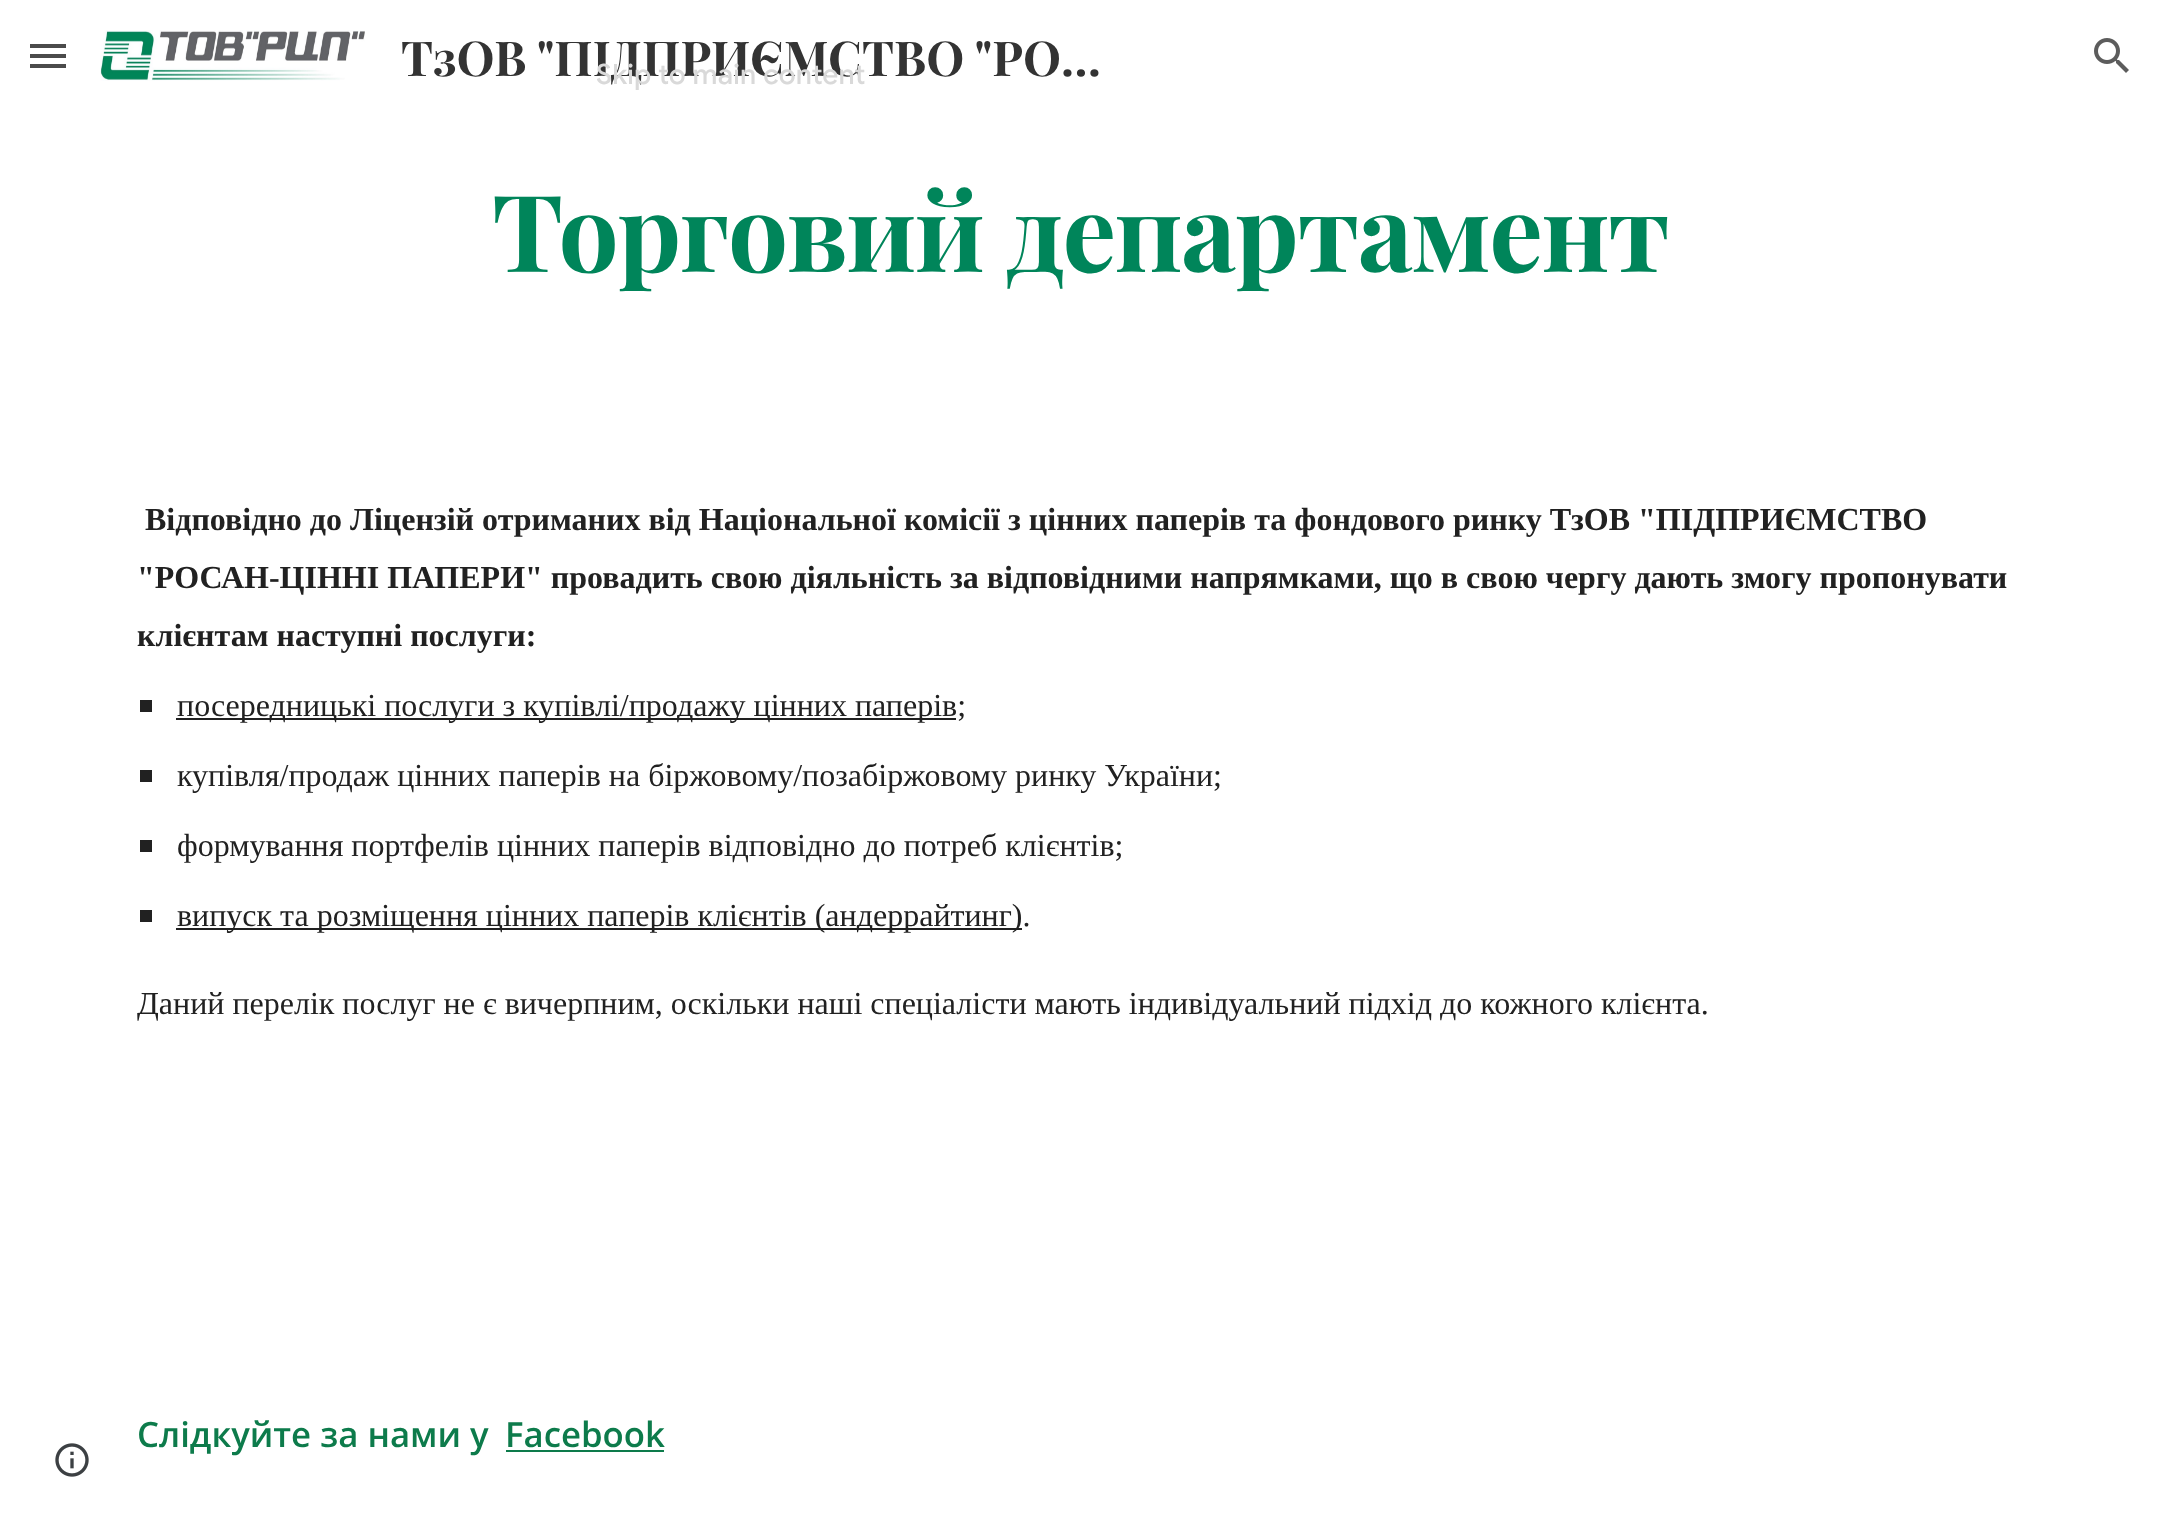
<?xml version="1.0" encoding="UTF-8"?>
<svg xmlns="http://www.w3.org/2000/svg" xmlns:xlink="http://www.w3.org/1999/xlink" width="2159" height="1528">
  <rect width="100%" height="100%" fill="#ffffff" />
  <rect x="30" y="44" width="36" height="4" fill="#4b4b4b" />
  <rect x="30" y="54" width="36" height="4" fill="#4b4b4b" />
  <rect x="30" y="64" width="36" height="4" fill="#4b4b4b" />
  <image x="100" y="30" width="265" height="51" xlink:href="image1.png" />
  <image x="2094" y="38" width="35" height="35" xlink:href="image2.png" />
  <rect x="140" y="700" width="12" height="12" fill="#212121" />
  <rect x="176" y="718" width="780" height="2" fill="#212121" />
  <rect x="140" y="770" width="12" height="12" fill="#212121" />
  <rect x="140" y="840" width="12" height="12" fill="#212121" />
  <rect x="140" y="910" width="12" height="12" fill="#212121" />
  <rect x="176" y="928" width="846" height="2" fill="#212121" />
  <rect x="506" y="1450" width="158" height="2" fill="#0d7b4b" />
  <image x="55" y="1443" width="34" height="34" xlink:href="image3.png" />
  <text x="401" y="76" word-spacing="-1" style="font-family: Playfair Display; font-size: 48px; font-weight: bold; fill: #333333">ТзОВ "ПІДПРИЄМСТВО "РО…</text>
  <text x="492" y="272" style="font-family: Playfair Display; font-size: 106.75px; font-weight: bold; letter-spacing: -1.6px; fill: #00855a">Торговий департамент</text>
  <text x="145" y="530" style="font-family: Liberation Serif; font-size: 32px; font-weight: bold; fill: #212121">Відповідно до Ліцензій отриманих від Національної комісії з цінних паперів та фондового ринку ТзОВ "ПІДПРИЄМСТВО</text>
  <text x="137" y="588" style="font-family: Liberation Serif; font-size: 32px; font-weight: bold; fill: #212121">"РОСАН-ЦІННІ ПАПЕРИ" провадить свою діяльність за відповідними напрямками, що в свою чергу дають змогу пропонувати</text>
  <text x="137" y="646" style="font-family: Liberation Serif; font-size: 32px; font-weight: bold; fill: #212121">клієнтам наступні послуги:</text>
  <text x="177" y="716" style="font-family: Liberation Serif; font-size: 32px; fill: #212121">посередницькі послуги з купівлі/продажу цінних паперів;</text>
  <text x="177" y="786" style="font-family: Liberation Serif; font-size: 32px; fill: #212121">купівля/продаж цінних паперів на біржовому/позабіржовому ринку України;</text>
  <text x="177" y="856" style="font-family: Liberation Serif; font-size: 32px; fill: #212121">формування портфелів цінних паперів відповідно до потреб клієнтів;</text>
  <text x="177" y="926" style="font-family: Liberation Serif; font-size: 32px; fill: #212121">випуск та розміщення цінних паперів клієнтів (андеррайтинг).</text>
  <text x="137" y="1014" style="font-family: Liberation Serif; font-size: 32px; fill: #212121">Даний перелік послуг не є вичерпним, оскільки наші спеціалісти мають індивідуальний підхід до кожного клієнта.</text>
  <text x="137" y="1447" style="font-family: Open Sans; font-size: 34.75px; font-weight: 600; fill: #0d7b4b">Слідкуйте за нами у</text>
  <text x="505" y="1447" style="font-family: Open Sans; font-size: 34.75px; font-weight: 600; fill: #0d7b4b">Facebook</text>
  <text x="596" y="84" style="font-family: Google Sans; font-size: 28px; font-weight: 500; letter-spacing: 0.25px; fill: #d9d9d9">Skip to main content</text>
</svg>
